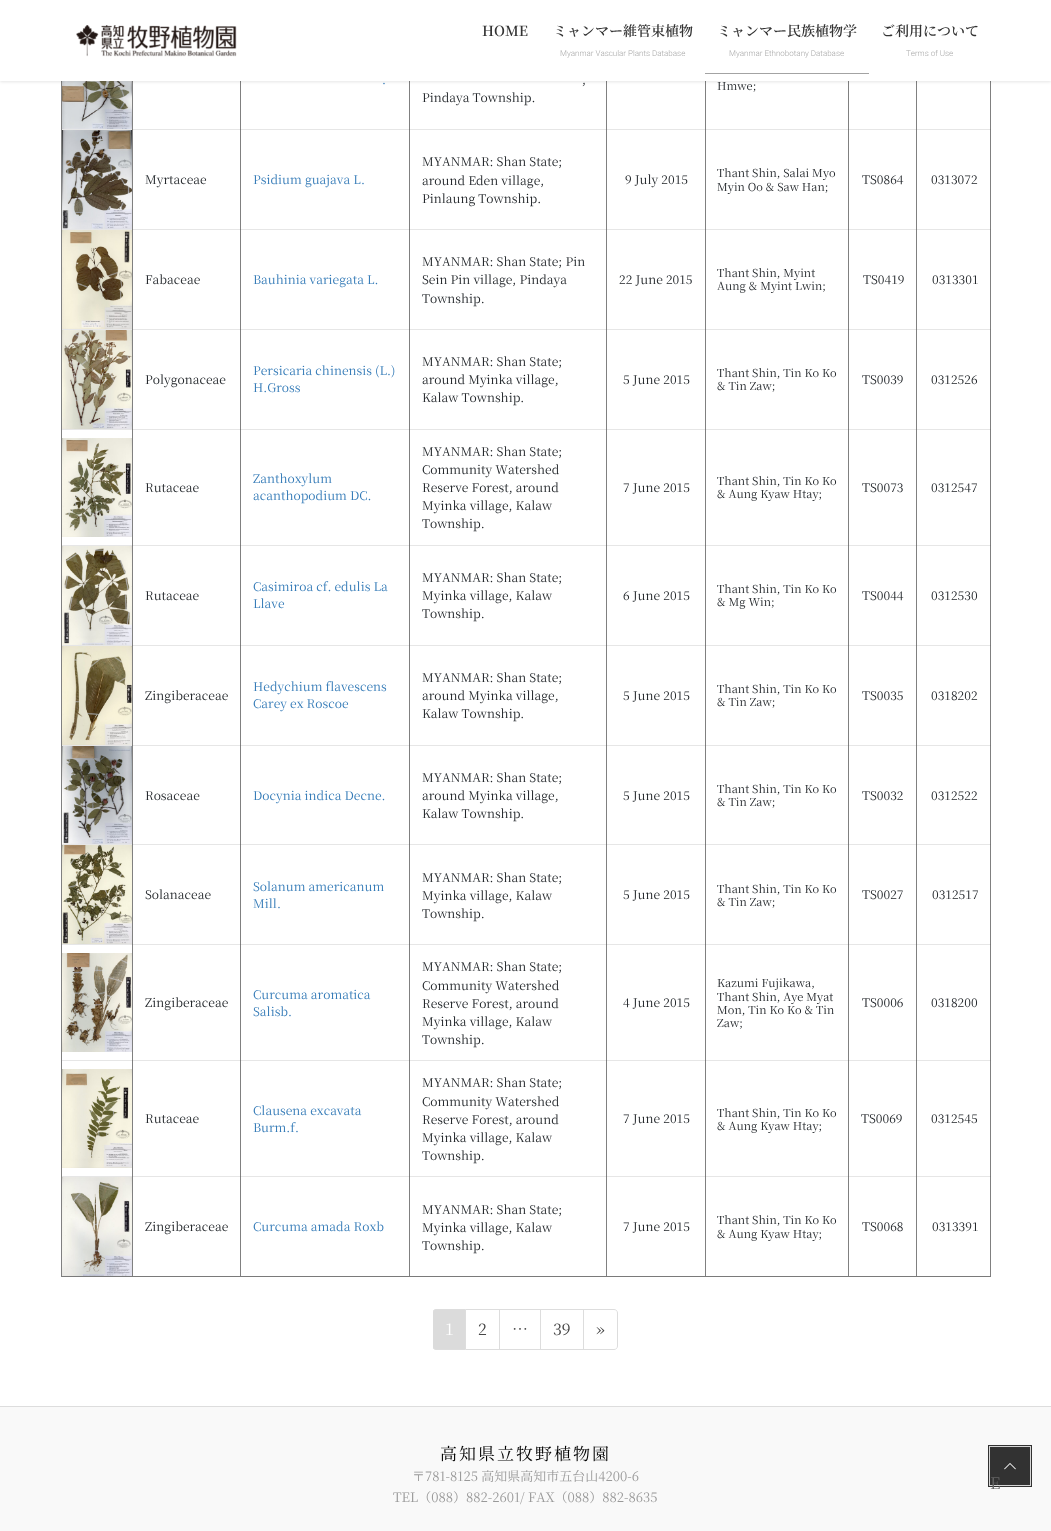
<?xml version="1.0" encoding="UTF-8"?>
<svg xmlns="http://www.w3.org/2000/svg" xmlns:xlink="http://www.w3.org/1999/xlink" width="1051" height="1531">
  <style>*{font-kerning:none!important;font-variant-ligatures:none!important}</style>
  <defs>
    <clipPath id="clip1"><rect x="433" y="1309" width="33" height="41" /></clipPath>
    <clipPath id="clip2"><rect x="466" y="1309" width="34" height="41" /></clipPath>
    <clipPath id="clip3"><rect x="500" y="1309" width="41" height="41" /></clipPath>
    <clipPath id="clip4"><rect x="541" y="1309" width="43" height="41" /></clipPath>
    <clipPath id="clip5"><rect x="584" y="1309" width="34" height="41" /></clipPath>
  </defs>
  <rect width="100%" height="100%" fill="#ffffff" />
  <rect x="61" y="129" width="930" height="1" fill="#e6e6e6" />
  <rect x="61" y="229" width="930" height="1" fill="#e6e6e6" />
  <rect x="61" y="329" width="930" height="1" fill="#e6e6e6" />
  <rect x="61" y="429" width="930" height="1" fill="#e6e6e6" />
  <rect x="61" y="545" width="930" height="1" fill="#e6e6e6" />
  <rect x="61" y="645" width="930" height="1" fill="#e6e6e6" />
  <rect x="61" y="745" width="930" height="1" fill="#e6e6e6" />
  <rect x="61" y="844" width="930" height="1" fill="#e6e6e6" />
  <rect x="61" y="944" width="930" height="1" fill="#e6e6e6" />
  <rect x="61" y="1060" width="930" height="1" fill="#e6e6e6" />
  <rect x="61" y="1176" width="930" height="1" fill="#e6e6e6" />
  <image x="62" y="81" width="70" height="48" xlink:href="image2.png" />
  <rect x="990" y="81" width="1" height="1196" fill="#808080" />
  <rect x="916" y="1276" width="75" height="1" fill="#7a7a7a" />
  <rect x="916" y="81" width="1" height="1196" fill="#808080" />
  <rect x="848" y="1276" width="69" height="1" fill="#7a7a7a" />
  <rect x="848" y="81" width="1" height="1196" fill="#808080" />
  <rect x="705" y="1276" width="144" height="1" fill="#7a7a7a" />
  <rect x="705" y="81" width="1" height="1196" fill="#808080" />
  <rect x="606" y="1276" width="100" height="1" fill="#7a7a7a" />
  <rect x="606" y="81" width="1" height="1196" fill="#808080" />
  <rect x="409" y="1276" width="198" height="1" fill="#7a7a7a" />
  <rect x="409" y="81" width="1" height="1196" fill="#808080" />
  <rect x="240" y="1276" width="170" height="1" fill="#7a7a7a" />
  <rect x="240" y="81" width="1" height="1196" fill="#808080" />
  <rect x="132" y="1276" width="109" height="1" fill="#7a7a7a" />
  <rect x="132" y="81" width="1" height="1196" fill="#808080" />
  <rect x="61" y="1276" width="72" height="1" fill="#7a7a7a" />
  <rect x="61" y="81" width="1" height="1196" fill="#808080" />
  <rect y="1" width="1051" height="81" fill="#000000" fill-opacity="0.1" filter="blur(1.5px)" />
  <rect width="1051" height="81" fill="#ffffff" />
  <image x="76" y="25" width="161" height="32" xlink:href="image1.png" />
  <rect x="705" y="73" width="164" height="1" fill="#a3a3a3" />
  <rect x="132" y="129" width="1" height="1" fill="#7a7a7a" />
  <rect x="409" y="129" width="1" height="1" fill="#7a7a7a" />
  <rect x="606" y="129" width="1" height="1" fill="#7a7a7a" />
  <rect x="848" y="129" width="1" height="1" fill="#7a7a7a" />
  <rect x="240" y="129" width="1" height="1" fill="#7a7a7a" />
  <rect x="705" y="129" width="1" height="1" fill="#7a7a7a" />
  <rect x="916" y="129" width="1" height="1" fill="#7a7a7a" />
  <rect x="990" y="129" width="1" height="1" fill="#7a7a7a" />
  <rect x="132" y="229" width="1" height="1" fill="#7a7a7a" />
  <image x="62" y="130" width="70" height="99" xlink:href="image3.png" />
  <rect x="240" y="229" width="1" height="1" fill="#7a7a7a" />
  <rect x="409" y="229" width="1" height="1" fill="#7a7a7a" />
  <rect x="606" y="229" width="1" height="1" fill="#7a7a7a" />
  <rect x="705" y="229" width="1" height="1" fill="#7a7a7a" />
  <rect x="848" y="229" width="1" height="1" fill="#7a7a7a" />
  <rect x="916" y="229" width="1" height="1" fill="#7a7a7a" />
  <rect x="990" y="229" width="1" height="1" fill="#7a7a7a" />
  <rect x="132" y="329" width="1" height="1" fill="#7a7a7a" />
  <image x="62" y="230" width="70" height="99" xlink:href="image4.png" />
  <rect x="240" y="329" width="1" height="1" fill="#7a7a7a" />
  <rect x="409" y="329" width="1" height="1" fill="#7a7a7a" />
  <rect x="606" y="329" width="1" height="1" fill="#7a7a7a" />
  <rect x="705" y="329" width="1" height="1" fill="#7a7a7a" />
  <rect x="848" y="329" width="1" height="1" fill="#7a7a7a" />
  <rect x="916" y="329" width="1" height="1" fill="#7a7a7a" />
  <rect x="990" y="329" width="1" height="1" fill="#7a7a7a" />
  <rect x="132" y="429" width="1" height="1" fill="#7a7a7a" />
  <image x="62" y="330" width="70" height="99" xlink:href="image5.png" />
  <rect x="240" y="429" width="1" height="1" fill="#7a7a7a" />
  <rect x="409" y="429" width="1" height="1" fill="#7a7a7a" />
  <rect x="606" y="429" width="1" height="1" fill="#7a7a7a" />
  <rect x="705" y="429" width="1" height="1" fill="#7a7a7a" />
  <rect x="848" y="429" width="1" height="1" fill="#7a7a7a" />
  <rect x="916" y="429" width="1" height="1" fill="#7a7a7a" />
  <rect x="990" y="429" width="1" height="1" fill="#7a7a7a" />
  <rect x="132" y="545" width="1" height="1" fill="#7a7a7a" />
  <image x="62" y="438" width="70" height="99" xlink:href="image6.png" />
  <rect x="240" y="545" width="1" height="1" fill="#7a7a7a" />
  <rect x="409" y="545" width="1" height="1" fill="#7a7a7a" />
  <rect x="606" y="545" width="1" height="1" fill="#7a7a7a" />
  <rect x="705" y="545" width="1" height="1" fill="#7a7a7a" />
  <rect x="848" y="545" width="1" height="1" fill="#7a7a7a" />
  <rect x="916" y="545" width="1" height="1" fill="#7a7a7a" />
  <rect x="990" y="545" width="1" height="1" fill="#7a7a7a" />
  <rect x="132" y="645" width="1" height="1" fill="#7a7a7a" />
  <image x="62" y="546" width="70" height="99" xlink:href="image7.png" />
  <rect x="240" y="645" width="1" height="1" fill="#7a7a7a" />
  <rect x="409" y="645" width="1" height="1" fill="#7a7a7a" />
  <rect x="606" y="645" width="1" height="1" fill="#7a7a7a" />
  <rect x="705" y="645" width="1" height="1" fill="#7a7a7a" />
  <rect x="848" y="645" width="1" height="1" fill="#7a7a7a" />
  <rect x="916" y="645" width="1" height="1" fill="#7a7a7a" />
  <rect x="990" y="645" width="1" height="1" fill="#7a7a7a" />
  <rect x="132" y="745" width="1" height="1" fill="#7a7a7a" />
  <image x="62" y="646" width="70" height="99" xlink:href="image8.png" />
  <rect x="240" y="745" width="1" height="1" fill="#7a7a7a" />
  <rect x="409" y="745" width="1" height="1" fill="#7a7a7a" />
  <rect x="606" y="745" width="1" height="1" fill="#7a7a7a" />
  <rect x="705" y="745" width="1" height="1" fill="#7a7a7a" />
  <rect x="848" y="745" width="1" height="1" fill="#7a7a7a" />
  <rect x="916" y="745" width="1" height="1" fill="#7a7a7a" />
  <rect x="990" y="745" width="1" height="1" fill="#7a7a7a" />
  <rect x="132" y="844" width="1" height="1" fill="#7a7a7a" />
  <image x="62" y="746" width="70" height="98" xlink:href="image9.png" />
  <rect x="240" y="844" width="1" height="1" fill="#7a7a7a" />
  <rect x="409" y="844" width="1" height="1" fill="#7a7a7a" />
  <rect x="606" y="844" width="1" height="1" fill="#7a7a7a" />
  <rect x="705" y="844" width="1" height="1" fill="#7a7a7a" />
  <rect x="848" y="844" width="1" height="1" fill="#7a7a7a" />
  <rect x="916" y="844" width="1" height="1" fill="#7a7a7a" />
  <rect x="990" y="844" width="1" height="1" fill="#7a7a7a" />
  <rect x="132" y="944" width="1" height="1" fill="#7a7a7a" />
  <image x="62" y="845" width="70" height="99" xlink:href="image10.png" />
  <rect x="240" y="944" width="1" height="1" fill="#7a7a7a" />
  <rect x="409" y="944" width="1" height="1" fill="#7a7a7a" />
  <rect x="606" y="944" width="1" height="1" fill="#7a7a7a" />
  <rect x="705" y="944" width="1" height="1" fill="#7a7a7a" />
  <rect x="848" y="944" width="1" height="1" fill="#7a7a7a" />
  <rect x="916" y="944" width="1" height="1" fill="#7a7a7a" />
  <rect x="990" y="944" width="1" height="1" fill="#7a7a7a" />
  <rect x="132" y="1060" width="1" height="1" fill="#7a7a7a" />
  <image x="62" y="953" width="70" height="99" xlink:href="image11.png" />
  <rect x="240" y="1060" width="1" height="1" fill="#7a7a7a" />
  <rect x="409" y="1060" width="1" height="1" fill="#7a7a7a" />
  <rect x="606" y="1060" width="1" height="1" fill="#7a7a7a" />
  <rect x="705" y="1060" width="1" height="1" fill="#7a7a7a" />
  <rect x="848" y="1060" width="1" height="1" fill="#7a7a7a" />
  <rect x="916" y="1060" width="1" height="1" fill="#7a7a7a" />
  <rect x="990" y="1060" width="1" height="1" fill="#7a7a7a" />
  <rect x="132" y="1176" width="1" height="1" fill="#7a7a7a" />
  <image x="62" y="1069" width="70" height="99" xlink:href="image12.png" />
  <rect x="240" y="1176" width="1" height="1" fill="#7a7a7a" />
  <rect x="409" y="1176" width="1" height="1" fill="#7a7a7a" />
  <rect x="606" y="1176" width="1" height="1" fill="#7a7a7a" />
  <rect x="705" y="1176" width="1" height="1" fill="#7a7a7a" />
  <rect x="848" y="1176" width="1" height="1" fill="#7a7a7a" />
  <rect x="916" y="1176" width="1" height="1" fill="#7a7a7a" />
  <rect x="990" y="1176" width="1" height="1" fill="#7a7a7a" />
  <image x="62" y="1177" width="70" height="99" xlink:href="image13.png" />
  <g clip-path="url(#clip1)">
    <path d="M 436 1309.5 h 29.5 v 40 h -29.5 c -2 0 -3.5 -1.5 -3.5 -3.5 v -33 c 0 -2 1.5 -3.5 3.5 -3.5 z" fill="#dbdbdb" stroke="#dddddd" />
  </g>
  <g clip-path="url(#clip2)">
    <rect x="465.5" y="1309.5" width="34" height="40" fill="none" stroke="#dddddd" />
  </g>
  <g clip-path="url(#clip3)">
    <rect x="499.5" y="1309.5" width="41" height="40" fill="none" stroke="#dddddd" />
  </g>
  <g clip-path="url(#clip4)">
    <rect x="540.5" y="1309.5" width="43" height="40" fill="none" stroke="#dddddd" />
  </g>
  <g clip-path="url(#clip5)">
    <path d="M 583.5 1309.5 h 30.5 c 2 0 3.5 1.5 3.5 3.5 v 33 c 0 2 -1.5 3.5 -3.5 3.5 h -30.5 z" fill="none" stroke="#dddddd" />
  </g>
  <rect y="1407" width="1051" height="124" fill="#f9f9f9" />
  <rect y="1406" width="1051" height="1" fill="#dddddd" />
  <rect x="989" y="1446" width="42" height="40" fill="none" stroke="#323232" stroke-width="2" />
  <rect x="989.5" y="1446.5" width="41" height="39" fill="none" stroke="#d6d6d6" />
  <rect x="990" y="1447" width="40" height="38" fill="#323232" />
  <image x="1004" y="1463" width="12" height="7" xlink:href="image14.png" />
  <text x="482" y="36" style="font-family: Noto Serif JP; font-size: 14px; font-weight: 600; fill: #333333">HOME</text>
  <text x="553" y="36" style="font-family: Noto Serif JP; font-size: 14px; font-weight: 600; fill: #333333">ミャンマー維管束植物</text>
  <text x="560" y="56" style="font-family: Roboto; font-size: 8px; font-weight: 300; fill: #a9a9a9">Myanmar Vascular Plants Database</text>
  <text x="717" y="36" style="font-family: Noto Serif JP; font-size: 14px; font-weight: 600; fill: #333333">ミャンマー民族植物学</text>
  <text x="729" y="56" style="font-family: Roboto; font-size: 8px; font-weight: 300; fill: #a9a9a9">Myanmar Ethnobotany Database</text>
  <text x="881" y="36" style="font-family: Noto Serif JP; font-size: 14px; font-weight: 600; fill: #333333">ご利用について</text>
  <text x="906" y="56" style="font-family: Roboto; font-size: 8px; font-weight: 300; fill: #a9a9a9">Terms of Use</text>
  <text x="382" y="84" style="font-family: Noto Serif JP; font-size: 12.1px; fill: #337ab7">.</text>
  <text x="582" y="84" style="font-family: Noto Serif JP; font-size: 12.1px; fill: #212529">,</text>
  <text x="422" y="102" style="font-family: Noto Serif JP; font-size: 12.1px; fill: #212529">Pindaya Township.</text>
  <text x="717" y="90" style="font-family: Noto Serif JP; font-size: 11.1px; fill: #212529">Hmwe;</text>
  <text x="145" y="184" style="font-family: Noto Serif JP; font-size: 12.1px; fill: #212529">Myrtaceae</text>
  <text x="253" y="184" style="font-family: Noto Serif JP; font-size: 12.1px; fill: #337ab7">Psidium guajava L.</text>
  <text x="422" y="166" style="font-family: Noto Serif JP; font-size: 12.1px; fill: #212529">MYANMAR: Shan State;</text>
  <text x="422" y="185" style="font-family: Noto Serif JP; font-size: 12.1px; fill: #212529">around Eden village,</text>
  <text x="422" y="203" style="font-family: Noto Serif JP; font-size: 12.1px; fill: #212529">Pinlaung Township.</text>
  <text x="625" y="184" style="font-family: Noto Serif JP; font-size: 12.1px; fill: #212529">9 July 2015</text>
  <text x="717" y="177" style="font-family: Noto Serif JP; font-size: 11.1px; fill: #212529">Thant Shin, Salai Myo</text>
  <text x="717" y="191" style="font-family: Noto Serif JP; font-size: 11.1px; fill: #212529">Myin Oo &amp; Saw Han;</text>
  <text x="862" y="184" style="font-family: Noto Serif JP; font-size: 12.1px; fill: #212529">TS0864</text>
  <text x="931" y="184" style="font-family: Noto Serif JP; font-size: 12.1px; fill: #212529">0313072</text>
  <text x="145" y="284" style="font-family: Noto Serif JP; font-size: 12.1px; fill: #212529">Fabaceae</text>
  <text x="253" y="284" style="font-family: Noto Serif JP; font-size: 12.1px; fill: #337ab7">Bauhinia variegata L.</text>
  <text x="422" y="266" style="font-family: Noto Serif JP; font-size: 12.1px; fill: #212529">MYANMAR: Shan State; Pin</text>
  <text x="422" y="284" style="font-family: Noto Serif JP; font-size: 12.1px; fill: #212529">Sein Pin village, Pindaya</text>
  <text x="422" y="303" style="font-family: Noto Serif JP; font-size: 12.1px; fill: #212529">Township.</text>
  <text x="619" y="284" style="font-family: Noto Serif JP; font-size: 12.1px; fill: #212529">22 June 2015</text>
  <text x="717" y="277" style="font-family: Noto Serif JP; font-size: 11.1px; fill: #212529">Thant Shin, Myint</text>
  <text x="717" y="290" style="font-family: Noto Serif JP; font-size: 11.1px; fill: #212529">Aung &amp; Myint Lwin;</text>
  <text x="863" y="284" style="font-family: Noto Serif JP; font-size: 12.1px; fill: #212529">TS0419</text>
  <text x="932" y="284" style="font-family: Noto Serif JP; font-size: 12.1px; fill: #212529">0313301</text>
  <text x="145" y="384" style="font-family: Noto Serif JP; font-size: 12.1px; fill: #212529">Polygonaceae</text>
  <text x="253" y="375" style="font-family: Noto Serif JP; font-size: 12.1px; fill: #337ab7">Persicaria chinensis (L.)</text>
  <text x="253" y="392" style="font-family: Noto Serif JP; font-size: 12.1px; fill: #337ab7">H.Gross</text>
  <text x="422" y="366" style="font-family: Noto Serif JP; font-size: 12.1px; fill: #212529">MYANMAR: Shan State;</text>
  <text x="422" y="384" style="font-family: Noto Serif JP; font-size: 12.1px; fill: #212529">around Myinka village,</text>
  <text x="422" y="402" style="font-family: Noto Serif JP; font-size: 12.1px; fill: #212529">Kalaw Township.</text>
  <text x="623" y="384" style="font-family: Noto Serif JP; font-size: 12.1px; fill: #212529">5 June 2015</text>
  <text x="717" y="377" style="font-family: Noto Serif JP; font-size: 11.1px; fill: #212529">Thant Shin, Tin Ko Ko</text>
  <text x="717" y="390" style="font-family: Noto Serif JP; font-size: 11.1px; fill: #212529">&amp; Tin Zaw;</text>
  <text x="862" y="384" style="font-family: Noto Serif JP; font-size: 12.1px; fill: #212529">TS0039</text>
  <text x="931" y="384" style="font-family: Noto Serif JP; font-size: 12.1px; fill: #212529">0312526</text>
  <text x="145" y="492" style="font-family: Noto Serif JP; font-size: 12.1px; fill: #212529">Rutaceae</text>
  <text x="253" y="483" style="font-family: Noto Serif JP; font-size: 12.1px; fill: #337ab7">Zanthoxylum</text>
  <text x="253" y="500" style="font-family: Noto Serif JP; font-size: 12.1px; fill: #337ab7">acanthopodium DC.</text>
  <text x="422" y="456" style="font-family: Noto Serif JP; font-size: 12.1px; fill: #212529">MYANMAR: Shan State;</text>
  <text x="422" y="474" style="font-family: Noto Serif JP; font-size: 12.1px; fill: #212529">Community Watershed</text>
  <text x="422" y="492" style="font-family: Noto Serif JP; font-size: 12.1px; fill: #212529">Reserve Forest, around</text>
  <text x="422" y="510" style="font-family: Noto Serif JP; font-size: 12.1px; fill: #212529">Myinka village, Kalaw</text>
  <text x="422" y="528" style="font-family: Noto Serif JP; font-size: 12.1px; fill: #212529">Township.</text>
  <text x="623" y="492" style="font-family: Noto Serif JP; font-size: 12.1px; fill: #212529">7 June 2015</text>
  <text x="717" y="485" style="font-family: Noto Serif JP; font-size: 11.1px; fill: #212529">Thant Shin, Tin Ko Ko</text>
  <text x="717" y="498" style="font-family: Noto Serif JP; font-size: 11.1px; fill: #212529">&amp; Aung Kyaw Htay;</text>
  <text x="862" y="492" style="font-family: Noto Serif JP; font-size: 12.1px; fill: #212529">TS0073</text>
  <text x="931" y="492" style="font-family: Noto Serif JP; font-size: 12.1px; fill: #212529">0312547</text>
  <text x="145" y="600" style="font-family: Noto Serif JP; font-size: 12.1px; fill: #212529">Rutaceae</text>
  <text x="253" y="591" style="font-family: Noto Serif JP; font-size: 12.1px; fill: #337ab7">Casimiroa cf. edulis La</text>
  <text x="253" y="608" style="font-family: Noto Serif JP; font-size: 12.1px; fill: #337ab7">Llave</text>
  <text x="422" y="582" style="font-family: Noto Serif JP; font-size: 12.1px; fill: #212529">MYANMAR: Shan State;</text>
  <text x="422" y="600" style="font-family: Noto Serif JP; font-size: 12.1px; fill: #212529">Myinka village, Kalaw</text>
  <text x="422" y="618" style="font-family: Noto Serif JP; font-size: 12.1px; fill: #212529">Township.</text>
  <text x="623" y="600" style="font-family: Noto Serif JP; font-size: 12.1px; fill: #212529">6 June 2015</text>
  <text x="717" y="593" style="font-family: Noto Serif JP; font-size: 11.1px; fill: #212529">Thant Shin, Tin Ko Ko</text>
  <text x="717" y="606" style="font-family: Noto Serif JP; font-size: 11.1px; fill: #212529">&amp; Mg Win;</text>
  <text x="862" y="600" style="font-family: Noto Serif JP; font-size: 12.1px; fill: #212529">TS0044</text>
  <text x="931" y="600" style="font-family: Noto Serif JP; font-size: 12.1px; fill: #212529">0312530</text>
  <text x="145" y="700" style="font-family: Noto Serif JP; font-size: 12.1px; fill: #212529">Zingiberaceae</text>
  <text x="253" y="691" style="font-family: Noto Serif JP; font-size: 12.1px; fill: #337ab7">Hedychium flavescens</text>
  <text x="253" y="708" style="font-family: Noto Serif JP; font-size: 12.1px; fill: #337ab7">Carey ex Roscoe</text>
  <text x="422" y="682" style="font-family: Noto Serif JP; font-size: 12.1px; fill: #212529">MYANMAR: Shan State;</text>
  <text x="422" y="700" style="font-family: Noto Serif JP; font-size: 12.1px; fill: #212529">around Myinka village,</text>
  <text x="422" y="718" style="font-family: Noto Serif JP; font-size: 12.1px; fill: #212529">Kalaw Township.</text>
  <text x="623" y="700" style="font-family: Noto Serif JP; font-size: 12.1px; fill: #212529">5 June 2015</text>
  <text x="717" y="693" style="font-family: Noto Serif JP; font-size: 11.1px; fill: #212529">Thant Shin, Tin Ko Ko</text>
  <text x="717" y="706" style="font-family: Noto Serif JP; font-size: 11.1px; fill: #212529">&amp; Tin Zaw;</text>
  <text x="862" y="700" style="font-family: Noto Serif JP; font-size: 12.1px; fill: #212529">TS0035</text>
  <text x="931" y="700" style="font-family: Noto Serif JP; font-size: 12.1px; fill: #212529">0318202</text>
  <text x="145" y="800" style="font-family: Noto Serif JP; font-size: 12.1px; fill: #212529">Rosaceae</text>
  <text x="253" y="800" style="font-family: Noto Serif JP; font-size: 12.1px; fill: #337ab7">Docynia indica Decne.</text>
  <text x="422" y="782" style="font-family: Noto Serif JP; font-size: 12.1px; fill: #212529">MYANMAR: Shan State;</text>
  <text x="422" y="800" style="font-family: Noto Serif JP; font-size: 12.1px; fill: #212529">around Myinka village,</text>
  <text x="422" y="818" style="font-family: Noto Serif JP; font-size: 12.1px; fill: #212529">Kalaw Township.</text>
  <text x="623" y="800" style="font-family: Noto Serif JP; font-size: 12.1px; fill: #212529">5 June 2015</text>
  <text x="717" y="793" style="font-family: Noto Serif JP; font-size: 11.1px; fill: #212529">Thant Shin, Tin Ko Ko</text>
  <text x="717" y="806" style="font-family: Noto Serif JP; font-size: 11.1px; fill: #212529">&amp; Tin Zaw;</text>
  <text x="862" y="800" style="font-family: Noto Serif JP; font-size: 12.1px; fill: #212529">TS0032</text>
  <text x="931" y="800" style="font-family: Noto Serif JP; font-size: 12.1px; fill: #212529">0312522</text>
  <text x="145" y="899" style="font-family: Noto Serif JP; font-size: 12.1px; fill: #212529">Solanaceae</text>
  <text x="253" y="891" style="font-family: Noto Serif JP; font-size: 12.1px; fill: #337ab7">Solanum americanum</text>
  <text x="253" y="908" style="font-family: Noto Serif JP; font-size: 12.1px; fill: #337ab7">Mill.</text>
  <text x="422" y="882" style="font-family: Noto Serif JP; font-size: 12.1px; fill: #212529">MYANMAR: Shan State;</text>
  <text x="422" y="900" style="font-family: Noto Serif JP; font-size: 12.1px; fill: #212529">Myinka village, Kalaw</text>
  <text x="422" y="918" style="font-family: Noto Serif JP; font-size: 12.1px; fill: #212529">Township.</text>
  <text x="623" y="899" style="font-family: Noto Serif JP; font-size: 12.1px; fill: #212529">5 June 2015</text>
  <text x="717" y="893" style="font-family: Noto Serif JP; font-size: 11.1px; fill: #212529">Thant Shin, Tin Ko Ko</text>
  <text x="717" y="906" style="font-family: Noto Serif JP; font-size: 11.1px; fill: #212529">&amp; Tin Zaw;</text>
  <text x="862" y="899" style="font-family: Noto Serif JP; font-size: 12.1px; fill: #212529">TS0027</text>
  <text x="932" y="899" style="font-family: Noto Serif JP; font-size: 12.1px; fill: #212529">0312517</text>
  <text x="145" y="1007" style="font-family: Noto Serif JP; font-size: 12.1px; fill: #212529">Zingiberaceae</text>
  <text x="253" y="999" style="font-family: Noto Serif JP; font-size: 12.1px; fill: #337ab7">Curcuma aromatica</text>
  <text x="253" y="1016" style="font-family: Noto Serif JP; font-size: 12.1px; fill: #337ab7">Salisb.</text>
  <text x="422" y="971" style="font-family: Noto Serif JP; font-size: 12.1px; fill: #212529">MYANMAR: Shan State;</text>
  <text x="422" y="990" style="font-family: Noto Serif JP; font-size: 12.1px; fill: #212529">Community Watershed</text>
  <text x="422" y="1008" style="font-family: Noto Serif JP; font-size: 12.1px; fill: #212529">Reserve Forest, around</text>
  <text x="422" y="1026" style="font-family: Noto Serif JP; font-size: 12.1px; fill: #212529">Myinka village, Kalaw</text>
  <text x="422" y="1044" style="font-family: Noto Serif JP; font-size: 12.1px; fill: #212529">Township.</text>
  <text x="623" y="1007" style="font-family: Noto Serif JP; font-size: 12.1px; fill: #212529">4 June 2015</text>
  <text x="717" y="987" style="font-family: Noto Serif JP; font-size: 11.1px; fill: #212529">Kazumi Fujikawa,</text>
  <text x="717" y="1001" style="font-family: Noto Serif JP; font-size: 11.1px; fill: #212529">Thant Shin, Aye Myat</text>
  <text x="717" y="1014" style="font-family: Noto Serif JP; font-size: 11.1px; fill: #212529">Mon, Tin Ko Ko &amp; Tin</text>
  <text x="717" y="1027" style="font-family: Noto Serif JP; font-size: 11.1px; fill: #212529">Zaw;</text>
  <text x="862" y="1007" style="font-family: Noto Serif JP; font-size: 12.1px; fill: #212529">TS0006</text>
  <text x="931" y="1007" style="font-family: Noto Serif JP; font-size: 12.1px; fill: #212529">0318200</text>
  <text x="145" y="1123" style="font-family: Noto Serif JP; font-size: 12.1px; fill: #212529">Rutaceae</text>
  <text x="253" y="1115" style="font-family: Noto Serif JP; font-size: 12.1px; fill: #337ab7">Clausena excavata</text>
  <text x="253" y="1132" style="font-family: Noto Serif JP; font-size: 12.1px; fill: #337ab7">Burm.f.</text>
  <text x="422" y="1087" style="font-family: Noto Serif JP; font-size: 12.1px; fill: #212529">MYANMAR: Shan State;</text>
  <text x="422" y="1106" style="font-family: Noto Serif JP; font-size: 12.1px; fill: #212529">Community Watershed</text>
  <text x="422" y="1124" style="font-family: Noto Serif JP; font-size: 12.1px; fill: #212529">Reserve Forest, around</text>
  <text x="422" y="1142" style="font-family: Noto Serif JP; font-size: 12.1px; fill: #212529">Myinka village, Kalaw</text>
  <text x="422" y="1160" style="font-family: Noto Serif JP; font-size: 12.1px; fill: #212529">Township.</text>
  <text x="623" y="1123" style="font-family: Noto Serif JP; font-size: 12.1px; fill: #212529">7 June 2015</text>
  <text x="717" y="1117" style="font-family: Noto Serif JP; font-size: 11.1px; fill: #212529">Thant Shin, Tin Ko Ko</text>
  <text x="717" y="1130" style="font-family: Noto Serif JP; font-size: 11.1px; fill: #212529">&amp; Aung Kyaw Htay;</text>
  <text x="861" y="1123" style="font-family: Noto Serif JP; font-size: 12.1px; fill: #212529">TS0069</text>
  <text x="931" y="1123" style="font-family: Noto Serif JP; font-size: 12.1px; fill: #212529">0312545</text>
  <text x="145" y="1231" style="font-family: Noto Serif JP; font-size: 12.1px; fill: #212529">Zingiberaceae</text>
  <text x="253" y="1231" style="font-family: Noto Serif JP; font-size: 12.1px; fill: #337ab7">Curcuma amada Roxb</text>
  <text x="422" y="1214" style="font-family: Noto Serif JP; font-size: 12.1px; fill: #212529">MYANMAR: Shan State;</text>
  <text x="422" y="1232" style="font-family: Noto Serif JP; font-size: 12.1px; fill: #212529">Myinka village, Kalaw</text>
  <text x="422" y="1250" style="font-family: Noto Serif JP; font-size: 12.1px; fill: #212529">Township.</text>
  <text x="623" y="1231" style="font-family: Noto Serif JP; font-size: 12.1px; fill: #212529">7 June 2015</text>
  <text x="717" y="1224" style="font-family: Noto Serif JP; font-size: 11.1px; fill: #212529">Thant Shin, Tin Ko Ko</text>
  <text x="717" y="1238" style="font-family: Noto Serif JP; font-size: 11.1px; fill: #212529">&amp; Aung Kyaw Htay;</text>
  <text x="862" y="1231" style="font-family: Noto Serif JP; font-size: 12.1px; fill: #212529">TS0068</text>
  <text x="932" y="1231" style="font-family: Noto Serif JP; font-size: 12.1px; fill: #212529">0313391</text>
  <text x="445" y="1335" style="font-family: Noto Serif JP; font-size: 16px; fill: #ffffff">1</text>
  <text x="478" y="1335" style="font-family: Noto Serif JP; font-size: 16px; fill: #464646">2</text>
  <text x="512" y="1335" style="font-family: Noto Serif JP; font-size: 16px; fill: #464646">…</text>
  <text x="553" y="1335" style="font-family: Noto Serif JP; font-size: 16px; fill: #464646">39</text>
  <text x="596" y="1335" style="font-family: Noto Serif JP; font-size: 16px; fill: #464646">»</text>
  <text x="440" y="1460" style="font-family: Noto Serif JP; font-size: 17px; letter-spacing: 2px; fill: #000000">高知県立牧野植物園</text>
  <text x="412" y="1481" style="font-family: Noto Serif JP; font-size: 13px; fill: #999999">〒781-8125 高知県高知市五台山4200-6</text>
  <text x="393" y="1502" style="font-family: Noto Serif JP; font-size: 13px; fill: #999999">TEL（088）882-2601/ FAX（088）882-8635</text>
  <text x="990" y="1489" style="font-family: Noto Serif JP; font-size: 16px; fill: #646464">E</text>
</svg>
